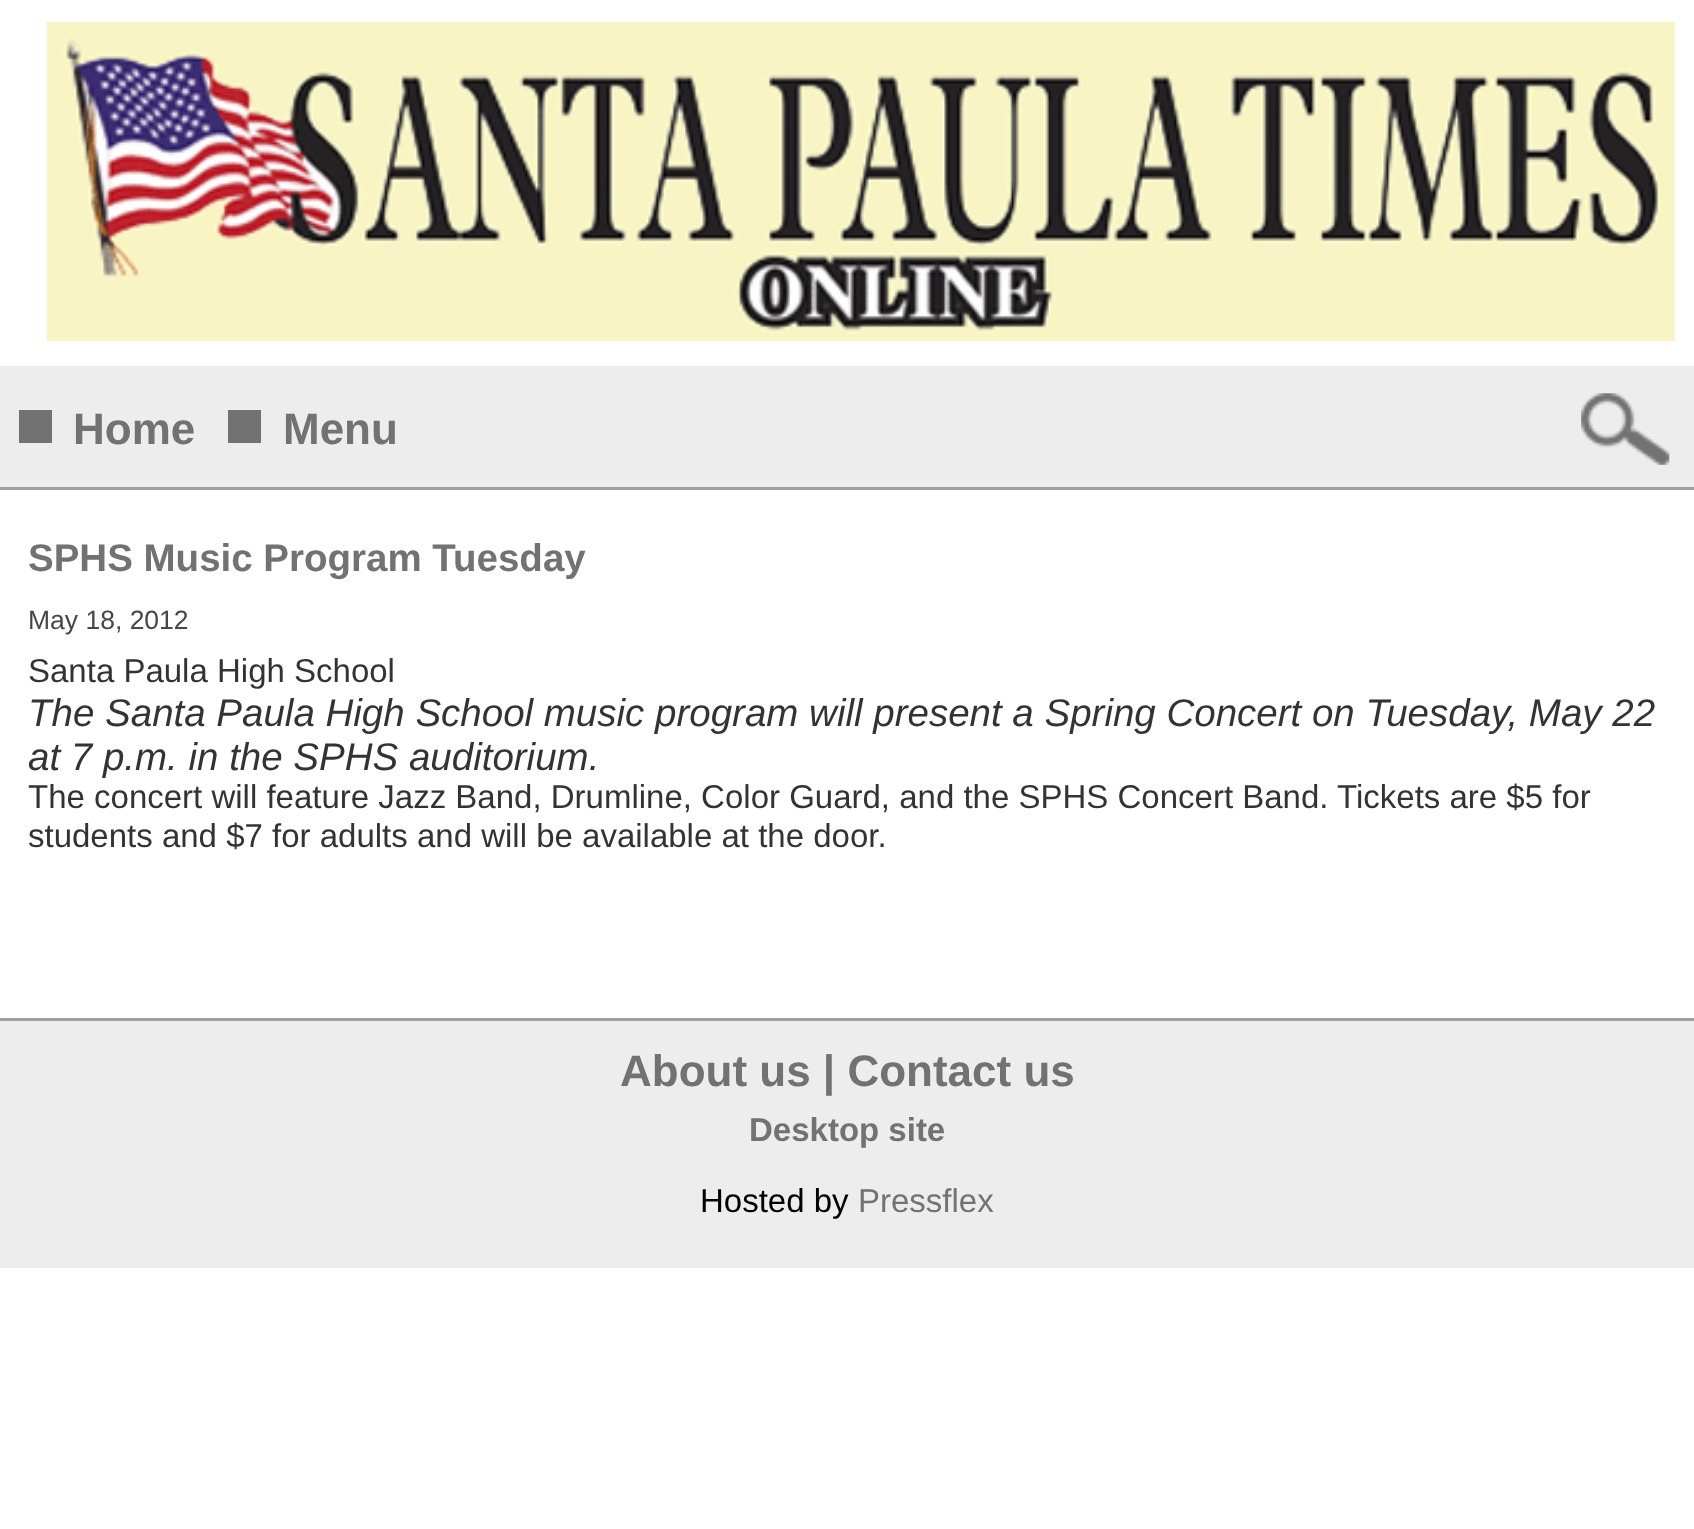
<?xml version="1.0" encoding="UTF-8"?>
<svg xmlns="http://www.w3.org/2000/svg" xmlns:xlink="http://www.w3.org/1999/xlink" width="1694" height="1529">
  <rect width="100%" height="100%" fill="#ffffff" />
  <image x="46" y="22" width="1629" height="319" xlink:href="image1.png" />
  <rect y="366" width="1694" height="121" fill="#ededed" />
  <rect y="487" width="1694" height="3" fill="#9f9f9f" />
  <rect x="19" y="410" width="33" height="33" fill="#727272" />
  <rect x="228" y="410" width="33" height="33" fill="#727272" />
  <image x="1581" y="393" width="89" height="72" xlink:href="image2.png" />
  <rect y="1021" width="1694" height="247" fill="#ededed" />
  <rect y="1018" width="1694" height="3" fill="#9f9f9f" />
  <text x="73" y="444" style="font-family: Liberation Sans; font-size: 44px; font-weight: bold; fill: #727272">Home</text>
  <text x="283" y="444" style="font-family: Liberation Sans; font-size: 44px; font-weight: bold; fill: #727272">Menu</text>
  <text x="28" y="571" style="font-family: Liberation Sans; font-size: 38.5px; font-weight: bold; fill: #727272">SPHS Music Program Tuesday</text>
  <text x="28" y="629" style="font-family: Liberation Sans; font-size: 26.5px; fill: #474747">May 18, 2012</text>
  <text x="28" y="682" style="font-family: Liberation Sans; font-size: 33px; fill: #333333">Santa Paula High School</text>
  <text x="28" y="726" style="font-family: Liberation Sans; font-size: 38.5px; font-style: italic; fill: #333333">The Santa Paula High School music program will present a Spring Concert on Tuesday, May 22</text>
  <text x="28" y="770" style="font-family: Liberation Sans; font-size: 38.5px; font-style: italic; fill: #333333">at 7 p.m. in the SPHS auditorium.</text>
  <text x="28" y="808" style="font-family: Liberation Sans; font-size: 33px; fill: #333333">The concert will feature Jazz Band, Drumline, Color Guard, and the SPHS Concert Band. Tickets are $5 for</text>
  <text x="28" y="847" style="font-family: Liberation Sans; font-size: 33px; fill: #333333">students and $7 for adults and will be available at the door.</text>
  <text x="620" y="1086" style="font-family: Liberation Sans; font-size: 44px; font-weight: bold; fill: #727272">About us | Contact us</text>
  <text x="749" y="1141" style="font-family: Liberation Sans; font-size: 33px; font-weight: bold; fill: #727272">Desktop site</text>
  <text x="700" y="1212" style="font-family: Liberation Sans; font-size: 33px; fill: #000000">Hosted by</text>
  <text x="858" y="1212" style="font-family: Liberation Sans; font-size: 33px; fill: #727272">Pressflex</text>
</svg>
